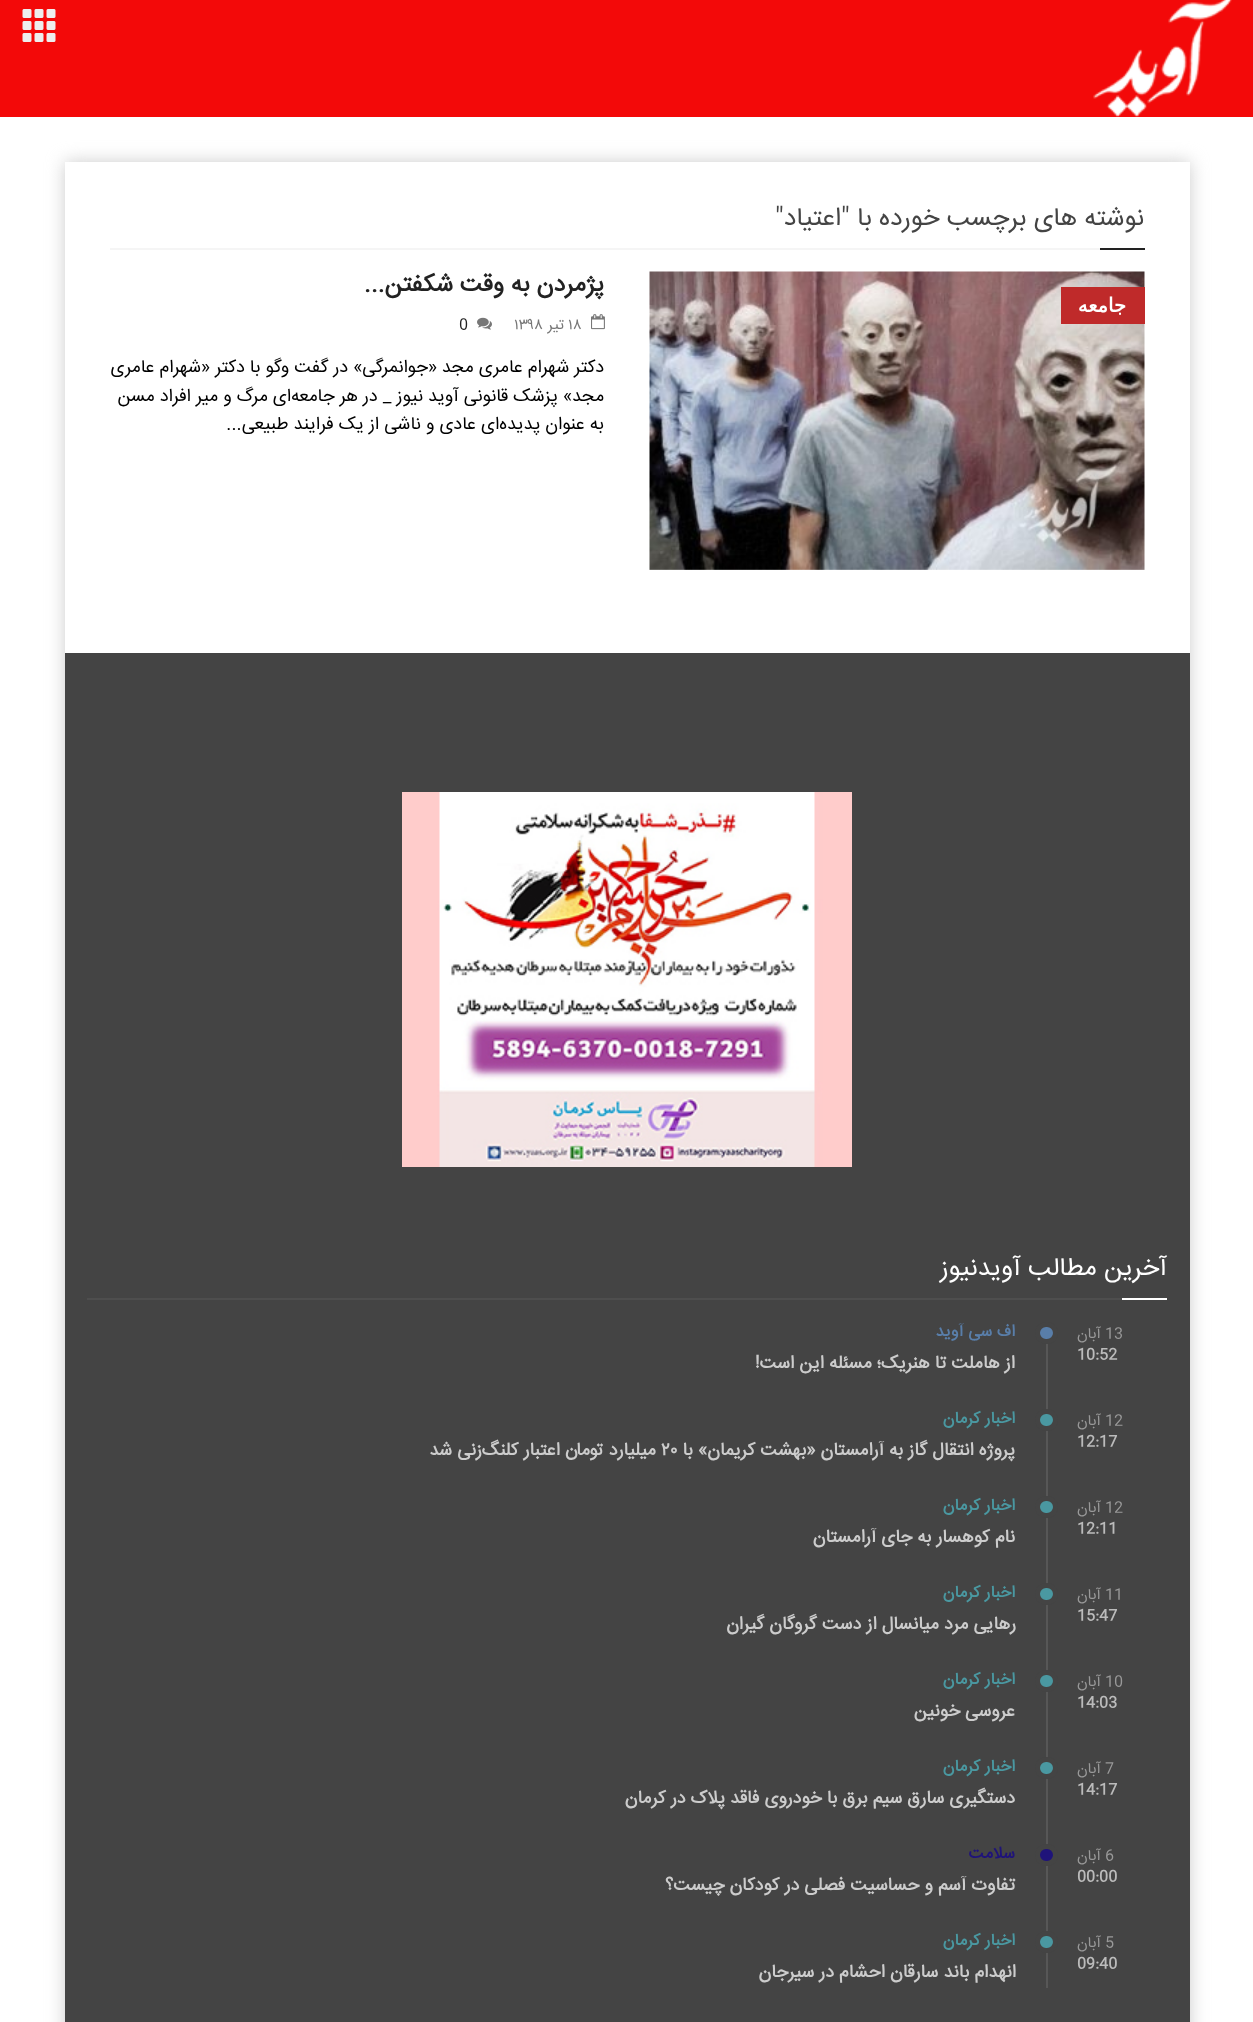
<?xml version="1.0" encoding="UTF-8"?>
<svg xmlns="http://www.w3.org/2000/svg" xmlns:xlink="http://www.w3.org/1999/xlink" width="1253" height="2022">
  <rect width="100%" height="100%" fill="#ffffff" />
  <rect width="1253" height="117" fill="#f30909" />
  <image x="1093" y="0" width="139" height="117" xlink:href="image1.png" />
  <image x="22" y="9" width="34" height="33" xlink:href="image2.png" />
  <rect x="65" y="162" width="1125" height="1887" fill="#cccccc" filter="blur(9px)" />
  <rect x="65" y="162" width="1125" height="491" fill="#ffffff" />
  <rect x="110" y="248" width="990" height="2" fill="#f5f5f5" />
  <rect x="1100" y="248" width="45" height="2" fill="#222222" />
  <image x="649" y="271" width="496" height="299" xlink:href="image3.png" />
  <rect x="1061" y="287" width="84" height="37" fill="#bf2a2a" />
  <image x="591" y="314" width="14" height="16" xlink:href="image4.png" />
  <image x="477" y="317" width="15" height="13" xlink:href="image5.png" />
  <rect x="65" y="653" width="1125" height="1369" fill="#444444" />
  <image x="402" y="792" width="450" height="375" xlink:href="image6.png" />
  <rect x="87" y="1298" width="1035" height="2" fill="#4e4e4e" />
  <rect x="1122" y="1298" width="45" height="2" fill="#ffffff" />
  <rect x="1046" y="1322" width="2" height="666" fill="#575757" />
  <rect x="1037.5" y="1324.5" width="18" height="17" rx="8.5" fill="#597ea9" stroke="#444444" stroke-width="5" />
  <rect x="1037.5" y="1411.5" width="18" height="17" rx="8.5" fill="#4a98a1" stroke="#444444" stroke-width="5" />
  <rect x="1037.5" y="1498.5" width="18" height="17" rx="8.5" fill="#4a98a1" stroke="#444444" stroke-width="5" />
  <rect x="1037.5" y="1585.5" width="18" height="17" rx="8.5" fill="#4a98a1" stroke="#444444" stroke-width="5" />
  <rect x="1037.5" y="1672.5" width="18" height="17" rx="8.5" fill="#4a98a1" stroke="#444444" stroke-width="5" />
  <rect x="1037.5" y="1759.5" width="18" height="17" rx="8.5" fill="#4a98a1" stroke="#444444" stroke-width="5" />
  <rect x="1037.5" y="1846.5" width="18" height="17" rx="8.5" fill="#1f137a" stroke="#444444" stroke-width="5" />
  <rect x="1037.5" y="1933.5" width="18" height="17" rx="8.5" fill="#4a98a1" stroke="#444444" stroke-width="5" />
  <text x="1144" y="225" style="font-family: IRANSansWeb; font-size: 25.5px; direction: rtl; fill: #444444">نوشته های برچسب خورده با "اعتیاد"</text>
  <text x="1126" y="312" style="font-family: DejaVu Sans; font-size: 19.5px; font-weight: bold; direction: rtl; fill: #ffffff">جامعه</text>
  <text x="604" y="291" style="font-family: IRANSansWeb; font-size: 24px; font-weight: bold; direction: rtl; fill: #222222">پژمردن به وقت شکفتن...</text>
  <text x="568" y="329" style="font-family: IRANSansWeb; font-size: 15px; fill: #777777">۱۸</text>
  <text x="564" y="329" style="font-family: IRANSansWeb; font-size: 15px; direction: rtl; fill: #777777">تیر</text>
  <text x="514" y="329" style="font-family: IRANSansWeb; font-size: 15px; fill: #777777">۱۳۹۸</text>
  <text x="459" y="329" style="font-family: IRANSansWeb; font-size: 15px; fill: #222222">0</text>
  <text x="604" y="372" style="font-family: IRANSansWeb; font-size: 18px; direction: rtl; fill: #000000">دکتر شهرام عامری مجد</text>
  <text x="437" y="372" style="font-family: IRANSansWeb; font-size: 18px; direction: rtl; fill: #000000">«جوانمرگی» در گفت وگو با دکتر «شهرام عامری</text>
  <text x="604" y="401" style="font-family: IRANSansWeb; font-size: 18px; direction: rtl; fill: #000000">مجد» پزشک قانونی آوید نیوز _ در هر جامعه‌ای مرگ و میر افراد مسن</text>
  <text x="604" y="429" style="font-family: IRANSansWeb; font-size: 18px; direction: rtl; fill: #000000">به عنوان پدیده‌ای عادی و ناشی از یک فرایند طبیعی...</text>
  <text x="1167" y="1275" style="font-family: IRANSansWeb; font-size: 25.5px; direction: rtl; fill: #ffffff">آخرین مطالب آویدنیوز</text>
  <text x="1105" y="1338" style="font-family: IRANSansWeb; font-size: 15px; fill: #999999">13</text>
  <text x="1101" y="1338" style="font-family: IRANSansWeb; font-size: 15px; direction: rtl; fill: #999999">آبان</text>
  <text x="1015" y="1336" style="font-family: IRANSansWeb; font-size: 16.5px; font-weight: bold; direction: rtl; fill: #597ea9">اف سی آوید</text>
  <text x="1015" y="1368" style="font-family: IRANSansWeb; font-size: 18px; font-weight: bold; direction: rtl; fill: #cccccc">از هاملت تا هنریک؛ مسئله این است!</text>
  <text x="1077" y="1359" style="font-family: IRANSansWeb; font-size: 15px; font-weight: bold; fill: #bbbbbb">10:52</text>
  <text x="1105" y="1425" style="font-family: IRANSansWeb; font-size: 15px; fill: #999999">12</text>
  <text x="1101" y="1425" style="font-family: IRANSansWeb; font-size: 15px; direction: rtl; fill: #999999">آبان</text>
  <text x="1015" y="1423" style="font-family: IRANSansWeb; font-size: 16.5px; font-weight: bold; direction: rtl; fill: #4a98a1">اخبار کرمان</text>
  <text x="1015" y="1455" style="font-family: IRANSansWeb; font-size: 18px; font-weight: bold; direction: rtl; fill: #cccccc">پروژه انتقال گاز به آرامستان «بهشت کریمان» با</text>
  <text x="661" y="1455" style="font-family: IRANSansWeb; font-size: 18px; font-weight: bold; fill: #cccccc">۲۰</text>
  <text x="656" y="1455" style="font-family: IRANSansWeb; font-size: 18px; font-weight: bold; direction: rtl; fill: #cccccc">میلیارد تومان اعتبار کلنگ‌زنی شد</text>
  <text x="1077" y="1446" style="font-family: IRANSansWeb; font-size: 15px; font-weight: bold; fill: #bbbbbb">12:17</text>
  <text x="1105" y="1512" style="font-family: IRANSansWeb; font-size: 15px; fill: #999999">12</text>
  <text x="1101" y="1512" style="font-family: IRANSansWeb; font-size: 15px; direction: rtl; fill: #999999">آبان</text>
  <text x="1015" y="1510" style="font-family: IRANSansWeb; font-size: 16.5px; font-weight: bold; direction: rtl; fill: #4a98a1">اخبار کرمان</text>
  <text x="1015" y="1542" style="font-family: IRANSansWeb; font-size: 18px; font-weight: bold; direction: rtl; fill: #cccccc">نام کوهسار به جای آرامستان</text>
  <text x="1077" y="1533" style="font-family: IRANSansWeb; font-size: 15px; font-weight: bold; fill: #bbbbbb">12:11</text>
  <text x="1105" y="1599" style="font-family: IRANSansWeb; font-size: 15px; fill: #999999">11</text>
  <text x="1101" y="1599" style="font-family: IRANSansWeb; font-size: 15px; direction: rtl; fill: #999999">آبان</text>
  <text x="1015" y="1597" style="font-family: IRANSansWeb; font-size: 16.5px; font-weight: bold; direction: rtl; fill: #4a98a1">اخبار کرمان</text>
  <text x="1016" y="1629" style="font-family: IRANSansWeb; font-size: 18px; font-weight: bold; direction: rtl; fill: #cccccc">رهایی مرد میانسال از دست گروگان گیران</text>
  <text x="1077" y="1620" style="font-family: IRANSansWeb; font-size: 15px; font-weight: bold; fill: #bbbbbb">15:47</text>
  <text x="1105" y="1686" style="font-family: IRANSansWeb; font-size: 15px; fill: #999999">10</text>
  <text x="1101" y="1686" style="font-family: IRANSansWeb; font-size: 15px; direction: rtl; fill: #999999">آبان</text>
  <text x="1015" y="1684" style="font-family: IRANSansWeb; font-size: 16.5px; font-weight: bold; direction: rtl; fill: #4a98a1">اخبار کرمان</text>
  <text x="1015" y="1716" style="font-family: IRANSansWeb; font-size: 18px; font-weight: bold; direction: rtl; fill: #cccccc">عروسی خونین</text>
  <text x="1077" y="1707" style="font-family: IRANSansWeb; font-size: 15px; font-weight: bold; fill: #bbbbbb">14:03</text>
  <text x="1105" y="1773" style="font-family: IRANSansWeb; font-size: 15px; fill: #999999">7</text>
  <text x="1101" y="1773" style="font-family: IRANSansWeb; font-size: 15px; direction: rtl; fill: #999999">آبان</text>
  <text x="1015" y="1771" style="font-family: IRANSansWeb; font-size: 16.5px; font-weight: bold; direction: rtl; fill: #4a98a1">اخبار کرمان</text>
  <text x="1015" y="1803" style="font-family: IRANSansWeb; font-size: 18px; font-weight: bold; direction: rtl; fill: #cccccc">دستگیری سارق سیم برق با خودروی فاقد پلاک در کرمان</text>
  <text x="1077" y="1794" style="font-family: IRANSansWeb; font-size: 15px; font-weight: bold; fill: #bbbbbb">14:17</text>
  <text x="1105" y="1860" style="font-family: IRANSansWeb; font-size: 15px; fill: #999999">6</text>
  <text x="1101" y="1860" style="font-family: IRANSansWeb; font-size: 15px; direction: rtl; fill: #999999">آبان</text>
  <text x="1015" y="1858" style="font-family: IRANSansWeb; font-size: 16.5px; font-weight: bold; direction: rtl; fill: #1f137a">سلامت</text>
  <text x="1015" y="1890" style="font-family: IRANSansWeb; font-size: 18px; font-weight: bold; direction: rtl; fill: #cccccc">تفاوت آسم و حساسیت فصلی در کودکان چیست؟</text>
  <text x="1077" y="1881" style="font-family: IRANSansWeb; font-size: 15px; font-weight: bold; fill: #bbbbbb">00:00</text>
  <text x="1105" y="1947" style="font-family: IRANSansWeb; font-size: 15px; fill: #999999">5</text>
  <text x="1101" y="1947" style="font-family: IRANSansWeb; font-size: 15px; direction: rtl; fill: #999999">آبان</text>
  <text x="1015" y="1945" style="font-family: IRANSansWeb; font-size: 16.5px; font-weight: bold; direction: rtl; fill: #4a98a1">اخبار کرمان</text>
  <text x="1016" y="1977" style="font-family: IRANSansWeb; font-size: 18px; font-weight: bold; direction: rtl; fill: #cccccc">انهدام باند سارقان احشام در سیرجان</text>
  <text x="1077" y="1968" style="font-family: IRANSansWeb; font-size: 15px; font-weight: bold; fill: #bbbbbb">09:40</text>
</svg>
